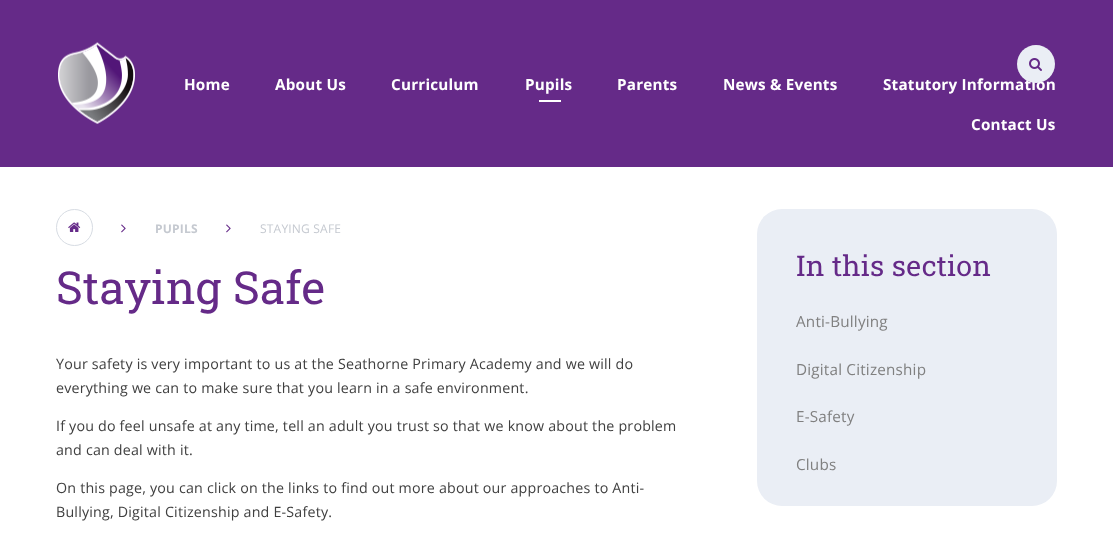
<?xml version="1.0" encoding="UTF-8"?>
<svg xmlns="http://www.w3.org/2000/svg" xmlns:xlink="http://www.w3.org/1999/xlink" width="1113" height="542">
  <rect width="100%" height="100%" fill="#ffffff" />
  <rect width="1113" height="167" fill="#652a88" />
  <image x="58" y="42" width="77" height="82" xlink:href="image1.png" />
  <rect x="539" y="100" width="22" height="2" fill="#ffffff" />
  <circle cx="74.5" cy="227.5" r="18" fill="none" stroke="#d7dce3" />
  <image x="68" y="222" width="13" height="10" xlink:href="image3.png" />
  <image x="121" y="224" width="5" height="9" xlink:href="image4.png" />
  <image x="226" y="224" width="5" height="9" xlink:href="image4.png" />
  <rect x="757" y="209" width="300" height="297" rx="25" fill="#eaeef5" />
  <text x="184" y="90" style="font-family: Open Sans; font-size: 15.25px; font-weight: bold; letter-spacing: 0.2px; fill: #ffffff">Home</text>
  <text x="275" y="90" style="font-family: Open Sans; font-size: 15.25px; font-weight: bold; letter-spacing: 0.2px; fill: #ffffff">About Us</text>
  <text x="391" y="90" style="font-family: Open Sans; font-size: 15.25px; font-weight: bold; letter-spacing: 0.2px; fill: #ffffff">Curriculum</text>
  <text x="525" y="90" style="font-family: Open Sans; font-size: 15.25px; font-weight: bold; letter-spacing: 0.2px; fill: #ffffff">Pupils</text>
  <text x="617" y="90" style="font-family: Open Sans; font-size: 15.25px; font-weight: bold; letter-spacing: 0.2px; fill: #ffffff">Parents</text>
  <text x="723" y="90" style="font-family: Open Sans; font-size: 15.25px; font-weight: bold; letter-spacing: 0.2px; fill: #ffffff">News &amp; Events</text>
  <text x="883" y="90" style="font-family: Open Sans; font-size: 15.25px; font-weight: bold; letter-spacing: 0.2px; fill: #ffffff">Statutory Information</text>
  <circle cx="1036" cy="64" r="19" fill="#eaeef5" />
  <image x="1029" y="58" width="13" height="13" xlink:href="image2.png" />
  <text x="971" y="130" style="font-family: Open Sans; font-size: 15.25px; font-weight: bold; letter-spacing: 0.2px; fill: #ffffff">Contact Us</text>
  <text x="155" y="233" style="font-family: Open Sans; font-size: 12px; font-weight: bold; letter-spacing: 0.2px; fill: #c5c9d0">PUPILS</text>
  <text x="260" y="233" style="font-family: Open Sans; font-size: 12px; letter-spacing: 0.2px; fill: #c5c9d0">STAYING SAFE</text>
  <text x="56" y="304" style="font-family: Roboto Slab; font-size: 45.5px; letter-spacing: 0.2px; fill: #652a88">Staying Safe</text>
  <text x="56" y="369" style="font-family: Open Sans; font-size: 14.25px; letter-spacing: 0.2px; fill: #404040">Your safety is very important to us at the Seathorne Primary Academy and we will do</text>
  <text x="56" y="393" style="font-family: Open Sans; font-size: 14.25px; letter-spacing: 0.2px; fill: #404040">everything we can to make sure that you learn in a safe environment.</text>
  <text x="56" y="431" style="font-family: Open Sans; font-size: 14.25px; letter-spacing: 0.2px; fill: #404040">If you do feel unsafe at any time, tell an adult you trust so that we know about the problem</text>
  <text x="56" y="455" style="font-family: Open Sans; font-size: 14.25px; letter-spacing: 0.2px; fill: #404040">and can deal with it.</text>
  <text x="56" y="493" style="font-family: Open Sans; font-size: 14.25px; letter-spacing: 0.2px; fill: #404040">On this page, you can click on the links to find out more about our approaches to Anti-</text>
  <text x="56" y="517" style="font-family: Open Sans; font-size: 14.25px; letter-spacing: 0.2px; fill: #404040">Bullying, Digital Citizenship and E-Safety.</text>
  <text x="796" y="276" style="font-family: Roboto Slab; font-size: 28.5px; letter-spacing: 0.2px; fill: #652a88">In this section</text>
  <text x="796" y="327" style="font-family: Open Sans; font-size: 15.25px; letter-spacing: 0.2px; fill: #808080">Anti-Bullying</text>
  <text x="796" y="375" style="font-family: Open Sans; font-size: 15.25px; letter-spacing: 0.2px; fill: #808080">Digital Citizenship</text>
  <text x="796" y="422" style="font-family: Open Sans; font-size: 15.25px; letter-spacing: 0.2px; fill: #808080">E-Safety</text>
  <text x="796" y="470" style="font-family: Open Sans; font-size: 15.25px; letter-spacing: 0.2px; fill: #808080">Clubs</text>
</svg>
